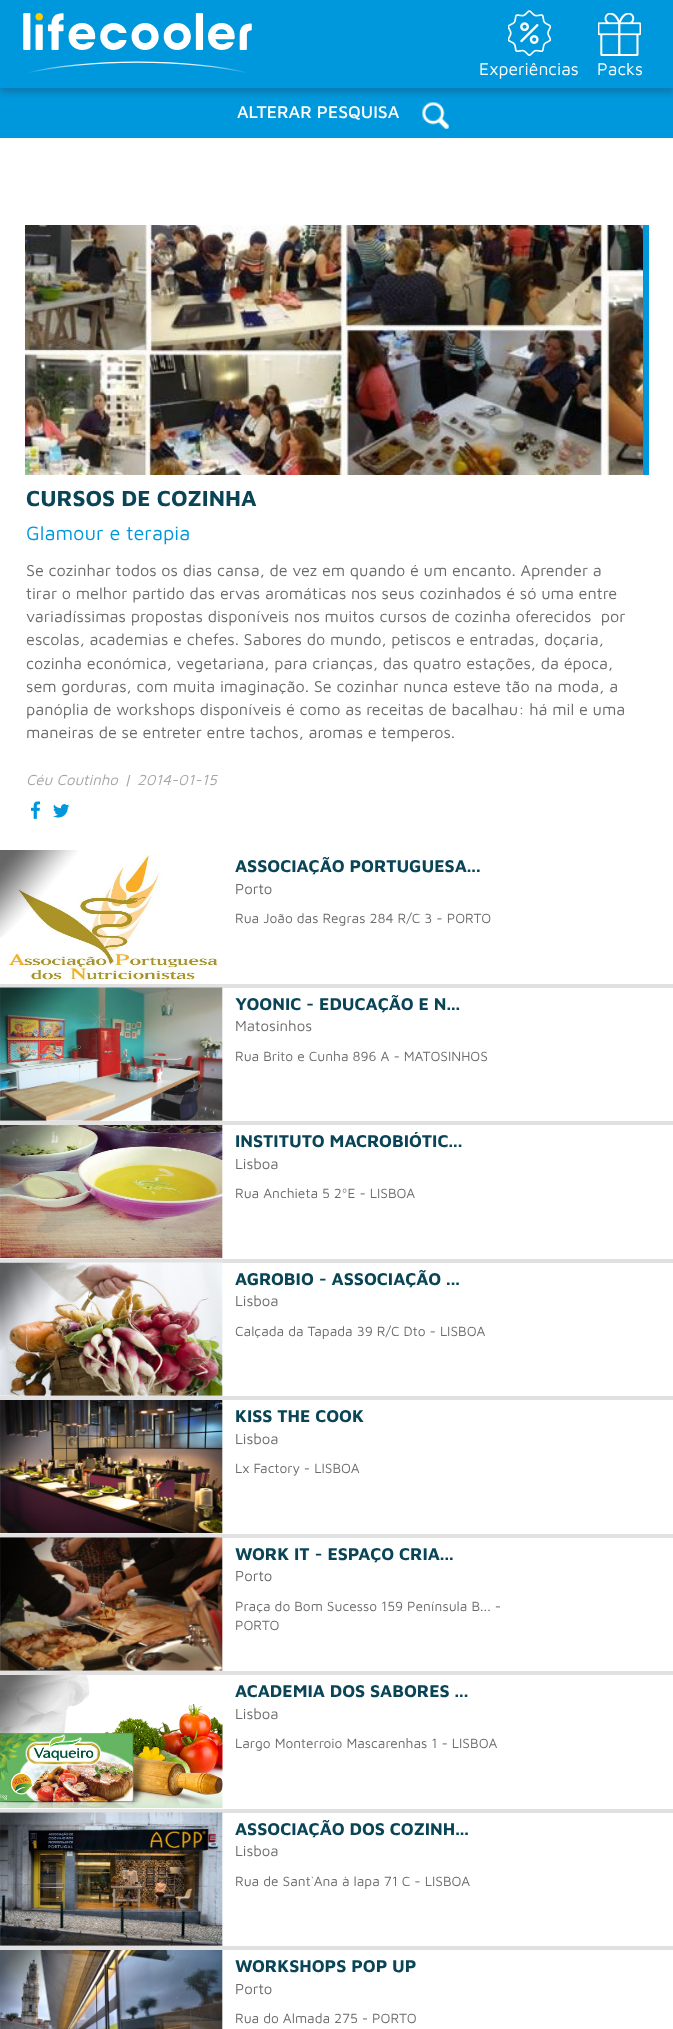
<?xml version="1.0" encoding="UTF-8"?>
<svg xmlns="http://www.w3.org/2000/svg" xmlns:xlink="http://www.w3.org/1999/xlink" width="673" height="2029">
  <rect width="100%" height="100%" fill="#ffffff" />
  <rect y="88" width="673" height="50" fill="#0098dd" />
  <image x="422" y="102" width="27" height="27" xlink:href="image4.png" />
  <rect y="5" width="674" height="88" fill="#2c3850" fill-opacity="0.3" filter="blur(3px)" />
  <rect width="673" height="88" fill="#0098dd" />
  <image x="23" y="13" width="229" height="60" xlink:href="image1.png" />
  <image x="508" y="10" width="43" height="46" xlink:href="image2.png" />
  <image x="598" y="13" width="43" height="43" xlink:href="image3.png" />
  <image x="25" y="225" width="618" height="250" xlink:href="image5.png" />
  <rect x="643" y="225" width="6" height="250" fill="#0098dd" />
  <image x="31" y="801" width="10" height="18" xlink:href="image6.png" />
  <image x="53" y="804" width="17" height="14" xlink:href="image7.png" />
  <rect y="984" width="673" height="4" fill="#e1e1e1" />
  <image x="5" y="855" width="216" height="127" xlink:href="image9.png" />
  <image x="0" y="850" width="78" height="88" xlink:href="image8.png" />
  <rect y="1121" width="673" height="4" fill="#e1e1e1" />
  <image x="0" y="987" width="223" height="134" xlink:href="image10.png" />
  <image x="0" y="987" width="76" height="88" xlink:href="image11.png" />
  <rect y="1259" width="673" height="4" fill="#e1e1e1" />
  <image x="0" y="1125" width="223" height="134" xlink:href="image12.png" />
  <image x="0" y="1125" width="78" height="88" xlink:href="image13.png" />
  <rect y="1396" width="673" height="4" fill="#e1e1e1" />
  <image x="0" y="1262" width="223" height="134" xlink:href="image14.png" />
  <image x="0" y="1262" width="78" height="88" xlink:href="image15.png" />
  <rect y="1534" width="673" height="4" fill="#e1e1e1" />
  <image x="0" y="1400" width="223" height="134" xlink:href="image16.png" />
  <image x="0" y="1400" width="72" height="83" xlink:href="image17.png" />
  <rect y="1671" width="673" height="4" fill="#e1e1e1" />
  <image x="0" y="1537" width="223" height="134" xlink:href="image18.png" />
  <image x="0" y="1537" width="77" height="76" xlink:href="image19.png" />
  <rect y="1809" width="673" height="4" fill="#e1e1e1" />
  <image x="0" y="1675" width="223" height="134" xlink:href="image20.png" />
  <image x="0" y="1675" width="78" height="88" xlink:href="image21.png" />
  <rect y="1946" width="673" height="4" fill="#e1e1e1" />
  <image x="0" y="1812" width="223" height="134" xlink:href="image22.png" />
  <image x="0" y="1812" width="78" height="88" xlink:href="image23.png" />
  <image x="0" y="1950" width="223" height="79" xlink:href="image24.png" />
  <image x="0" y="1950" width="76" height="79" xlink:href="image25.png" />
  <text x="479" y="75" style="font-family: Maven Pro; font-size: 17.5px; fill: #ffffff">Experiências</text>
  <text x="597" y="75" style="font-family: Maven Pro; font-size: 17.5px; fill: #ffffff">Packs</text>
  <text x="237" y="118" style="font-family: Maven Pro; font-size: 17.5px; font-weight: 500; fill: #ffffff">ALTERAR PESQUISA</text>
  <text x="26" y="506" style="font-family: Maven Pro; font-size: 22.5px; font-weight: bold; fill: #094556">CURSOS DE COZINHA</text>
  <text x="26" y="540" style="font-family: Maven Pro; font-size: 20px; fill: #0098dd">Glamour e terapia</text>
  <text x="26" y="576" style="font-family: Maven Pro; font-size: 16.25px; fill: #6b6b6b">Se cozinhar todos os dias cansa, de vez em quando é um encanto. Aprender a</text>
  <text x="26" y="599" style="font-family: Maven Pro; font-size: 16.25px; fill: #6b6b6b">tirar o melhor partido das ervas aromáticas nos seus cozinhados é só uma entre</text>
  <text x="26" y="622" style="font-family: Maven Pro; font-size: 16.25px; fill: #6b6b6b" xml:space="preserve">variadíssimas propostas disponíveis nos muitos cursos de cozinha oferecidos  por</text>
  <text x="26" y="645" style="font-family: Maven Pro; font-size: 16.25px; fill: #6b6b6b">escolas, academias e chefes. Sabores do mundo, petiscos e entradas, doçaria,</text>
  <text x="26" y="669" style="font-family: Maven Pro; font-size: 16.25px; fill: #6b6b6b">cozinha económica, vegetariana, para crianças, das quatro estações, da época,</text>
  <text x="26" y="692" style="font-family: Maven Pro; font-size: 16.25px; fill: #6b6b6b">sem gorduras, com muita imaginação. Se cozinhar nunca esteve tão na moda, a</text>
  <text x="26" y="715" style="font-family: Maven Pro; font-size: 16.25px; fill: #6b6b6b">panóplia de workshops disponíveis é como as receitas de bacalhau: há mil e uma</text>
  <text x="26" y="738" style="font-family: Maven Pro; font-size: 16.25px; fill: #6b6b6b">maneiras de se entreter entre tachos, aromas e temperos.</text>
  <text x="26" y="785" style="font-family: Maven Pro; font-size: 15px; font-style: italic; fill: #a6a6a6">Céu Coutinho</text>
  <text x="124" y="785" style="font-family: Maven Pro; font-size: 15px; font-style: italic; fill: #a6a6a6">|</text>
  <text x="137" y="785" style="font-family: Maven Pro; font-size: 15px; font-style: italic; fill: #a6a6a6">2014-01-15</text>
  <text x="235" y="872" style="font-family: Maven Pro; font-size: 17.5px; font-weight: bold; fill: #094556">ASSOCIAÇÃO PORTUGUESA...</text>
  <text x="235" y="894" style="font-family: Maven Pro; font-size: 15px; fill: #6b6b6b">Porto</text>
  <text x="235" y="923" style="font-family: Maven Pro; font-size: 13.75px; fill: #6b6b6b">Rua João das Regras 284 R/C 3 - PORTO</text>
  <text x="235" y="1010" style="font-family: Maven Pro; font-size: 17.5px; font-weight: bold; fill: #094556">YOONIC - EDUCAÇÃO E N...</text>
  <text x="235" y="1031" style="font-family: Maven Pro; font-size: 15px; fill: #6b6b6b">Matosinhos</text>
  <text x="235" y="1061" style="font-family: Maven Pro; font-size: 13.75px; fill: #6b6b6b">Rua Brito e Cunha 896 A - MATOSINHOS</text>
  <text x="235" y="1147" style="font-family: Maven Pro; font-size: 17.5px; font-weight: bold; fill: #094556">INSTITUTO MACROBIÓTIC...</text>
  <text x="235" y="1169" style="font-family: Maven Pro; font-size: 15px; fill: #6b6b6b">Lisboa</text>
  <text x="235" y="1198" style="font-family: Maven Pro; font-size: 13.75px; fill: #6b6b6b">Rua Anchieta 5 2ºE - LISBOA</text>
  <text x="235" y="1285" style="font-family: Maven Pro; font-size: 17.5px; font-weight: bold; fill: #094556">AGROBIO - ASSOCIAÇÃO ...</text>
  <text x="235" y="1306" style="font-family: Maven Pro; font-size: 15px; fill: #6b6b6b">Lisboa</text>
  <text x="235" y="1336" style="font-family: Maven Pro; font-size: 13.75px; fill: #6b6b6b">Calçada da Tapada 39 R/C Dto - LISBOA</text>
  <text x="235" y="1422" style="font-family: Maven Pro; font-size: 17.5px; font-weight: bold; fill: #094556">KISS THE COOK</text>
  <text x="235" y="1444" style="font-family: Maven Pro; font-size: 15px; fill: #6b6b6b">Lisboa</text>
  <text x="235" y="1473" style="font-family: Maven Pro; font-size: 13.75px; fill: #6b6b6b">Lx Factory - LISBOA</text>
  <text x="235" y="1560" style="font-family: Maven Pro; font-size: 17.5px; font-weight: bold; fill: #094556">WORK IT - ESPAÇO CRIA...</text>
  <text x="235" y="1581" style="font-family: Maven Pro; font-size: 15px; fill: #6b6b6b">Porto</text>
  <text x="235" y="1611" style="font-family: Maven Pro; font-size: 13.75px; fill: #6b6b6b">Praça do Bom Sucesso 159 Península B... -</text>
  <text x="235" y="1630" style="font-family: Maven Pro; font-size: 13.75px; fill: #6b6b6b">PORTO</text>
  <text x="235" y="1697" style="font-family: Maven Pro; font-size: 17.5px; font-weight: bold; fill: #094556">ACADEMIA DOS SABORES ...</text>
  <text x="235" y="1719" style="font-family: Maven Pro; font-size: 15px; fill: #6b6b6b">Lisboa</text>
  <text x="235" y="1748" style="font-family: Maven Pro; font-size: 13.75px; fill: #6b6b6b">Largo Monterroio Mascarenhas 1 - LISBOA</text>
  <text x="235" y="1835" style="font-family: Maven Pro; font-size: 17.5px; font-weight: bold; fill: #094556">ASSOCIAÇÃO DOS COZINH...</text>
  <text x="235" y="1856" style="font-family: Maven Pro; font-size: 15px; fill: #6b6b6b">Lisboa</text>
  <text x="235" y="1886" style="font-family: Maven Pro; font-size: 13.75px; fill: #6b6b6b">Rua de Sant`Ana à lapa 71 C - LISBOA</text>
  <text x="235" y="1972" style="font-family: Maven Pro; font-size: 17.5px; font-weight: bold; fill: #094556">WORKSHOPS POP UP</text>
  <text x="235" y="1994" style="font-family: Maven Pro; font-size: 15px; fill: #6b6b6b">Porto</text>
  <text x="235" y="2023" style="font-family: Maven Pro; font-size: 13.75px; fill: #6b6b6b">Rua do Almada 275 - PORTO</text>
</svg>
